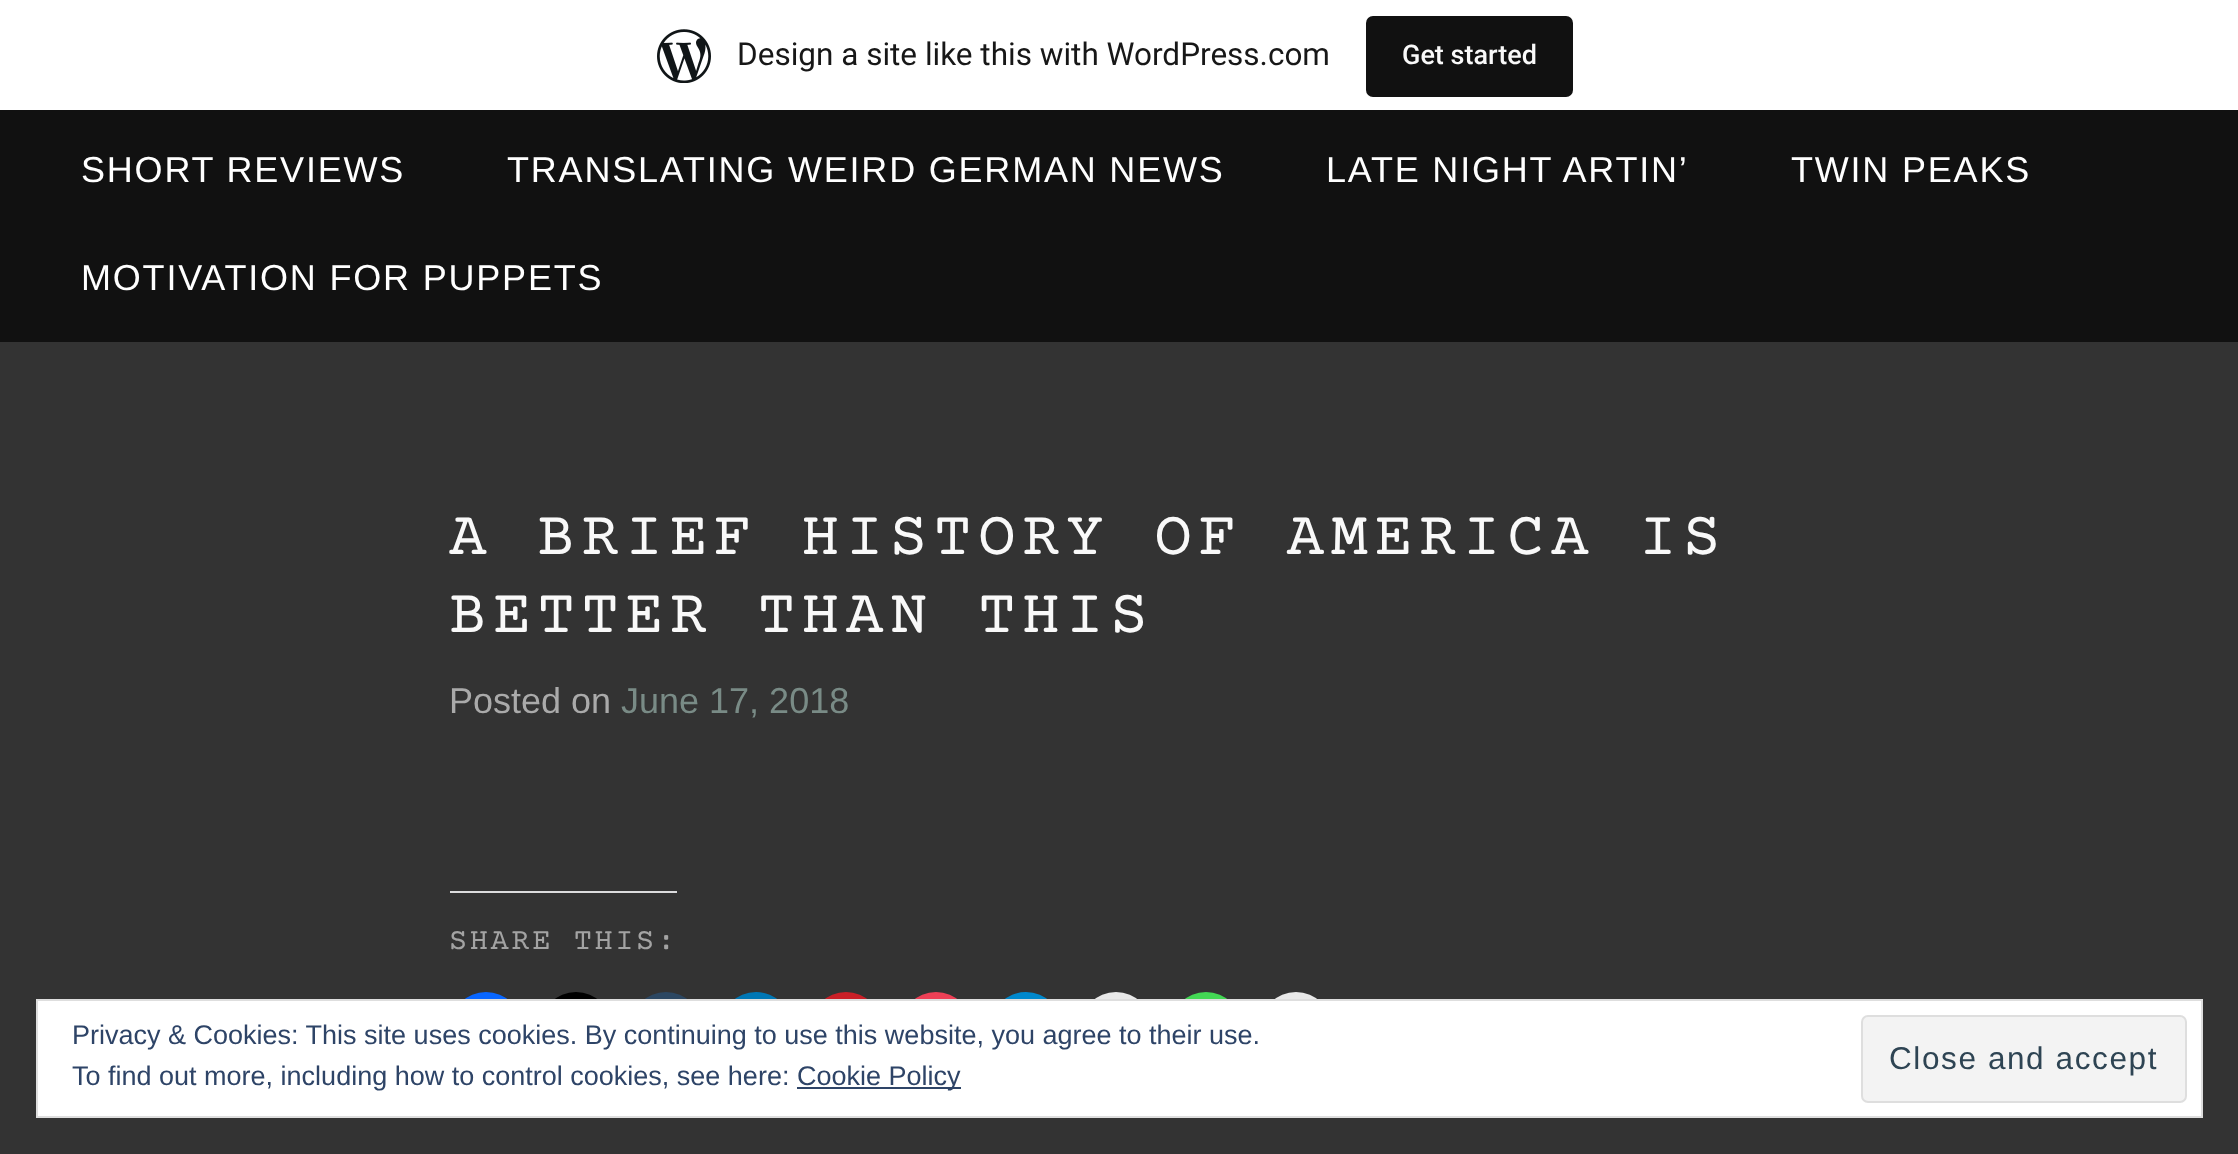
<?xml version="1.0" encoding="UTF-8"?>
<svg xmlns="http://www.w3.org/2000/svg" xmlns:xlink="http://www.w3.org/1999/xlink" width="2238" height="1154">
  <rect width="100%" height="100%" fill="#333333" />
  <rect width="2238" height="110" fill="#ffffff" />
  <image x="657" y="29" width="54" height="54" xlink:href="image1.png" />
  <rect x="1366" y="16" width="207" height="81" rx="7" fill="#111111" />
  <rect y="110" width="2238" height="232" fill="#111111" />
  <rect x="450" y="891" width="227" height="2" fill="#dcdcde" />
  <circle cx="486" cy="1028" r="36" fill="#0866ff" />
  <circle cx="576" cy="1028" r="36" fill="#000000" />
  <circle cx="666" cy="1028" r="36" fill="#2c4762" />
  <circle cx="756" cy="1028" r="36" fill="#0077b5" />
  <circle cx="846" cy="1028" r="36" fill="#ca1f27" />
  <circle cx="936" cy="1028" r="36" fill="#ee4056" />
  <circle cx="1026" cy="1028" r="36" fill="#0088cc" />
  <circle cx="1116" cy="1028" r="36" fill="#e9e9e9" />
  <circle cx="1206" cy="1028" r="36" fill="#43d854" />
  <circle cx="1296" cy="1028" r="36" fill="#e9e9e9" />
  <rect x="37" y="1000" width="2165" height="117" fill="#ffffff" stroke="#dedede" stroke-width="2" />
  <rect x="797" y="1087" width="164" height="2" fill="#2e4467" />
  <rect x="1862" y="1016" width="324" height="86" rx="6" fill="#f3f3f3" stroke="#dedede" stroke-width="2" />
  <text x="737" y="65" style="font-family: Roboto; font-size: 31.5px; fill: #171717">Design a site like this with WordPress.com</text>
  <text x="1402" y="64" style="font-family: Roboto; font-size: 27px; font-weight: 500; fill: #f9f9f9">Get started</text>
  <text x="81" y="182" style="font-family: Arimo; font-size: 36px; letter-spacing: 1.8px; fill: #ffffff">SHORT REVIEWS</text>
  <text x="507" y="182" style="font-family: Arimo; font-size: 36px; letter-spacing: 1.8px; fill: #ffffff">TRANSLATING WEIRD GERMAN NEWS</text>
  <text x="1326" y="182" style="font-family: Arimo; font-size: 36px; letter-spacing: 1.8px; fill: #ffffff">LATE NIGHT ARTIN’</text>
  <text x="1791" y="182" style="font-family: Arimo; font-size: 36px; letter-spacing: 1.8px; fill: #ffffff">TWIN PEAKS</text>
  <text x="81" y="290" style="font-family: Arimo; font-size: 36px; letter-spacing: 1.8px; fill: #ffffff">MOTIVATION FOR PUPPETS</text>
  <text x="449" y="554" style="font-family: Courier Prime; font-size: 63px; letter-spacing: 6.3px; fill: #f9f9f9">A BRIEF HISTORY OF AMERICA IS</text>
  <text x="449" y="632" style="font-family: Courier Prime; font-size: 63px; letter-spacing: 6.3px; fill: #f9f9f9">BETTER THAN THIS</text>
  <text x="449" y="713" style="font-family: Arimo; font-size: 36px; fill: #aaaaaa">Posted on</text>
  <text x="621" y="713" style="font-family: Arimo; font-size: 36px; fill: #798b86">June 17, 2018</text>
  <text x="449" y="949" style="font-family: Courier Prime; font-size: 30.5px; letter-spacing: 2.5px; fill: #a3a3a3">SHARE THIS:</text>
  <text x="72" y="1044" style="font-family: Arimo; font-size: 27px; fill: #2e4467">Privacy &amp; Cookies: This site uses cookies. By continuing to use this website, you agree to their use.</text>
  <text x="72" y="1085" style="font-family: Arimo; font-size: 27px; fill: #2e4467">To find out more, including how to control cookies, see here:</text>
  <text x="797" y="1085" style="font-family: Arimo; font-size: 27px; fill: #2e4467">Cookie Policy</text>
  <text x="1889" y="1069" style="font-family: Arimo; font-size: 31.5px; letter-spacing: 1.6px; fill: #2e4453">Close and accept</text>
</svg>
